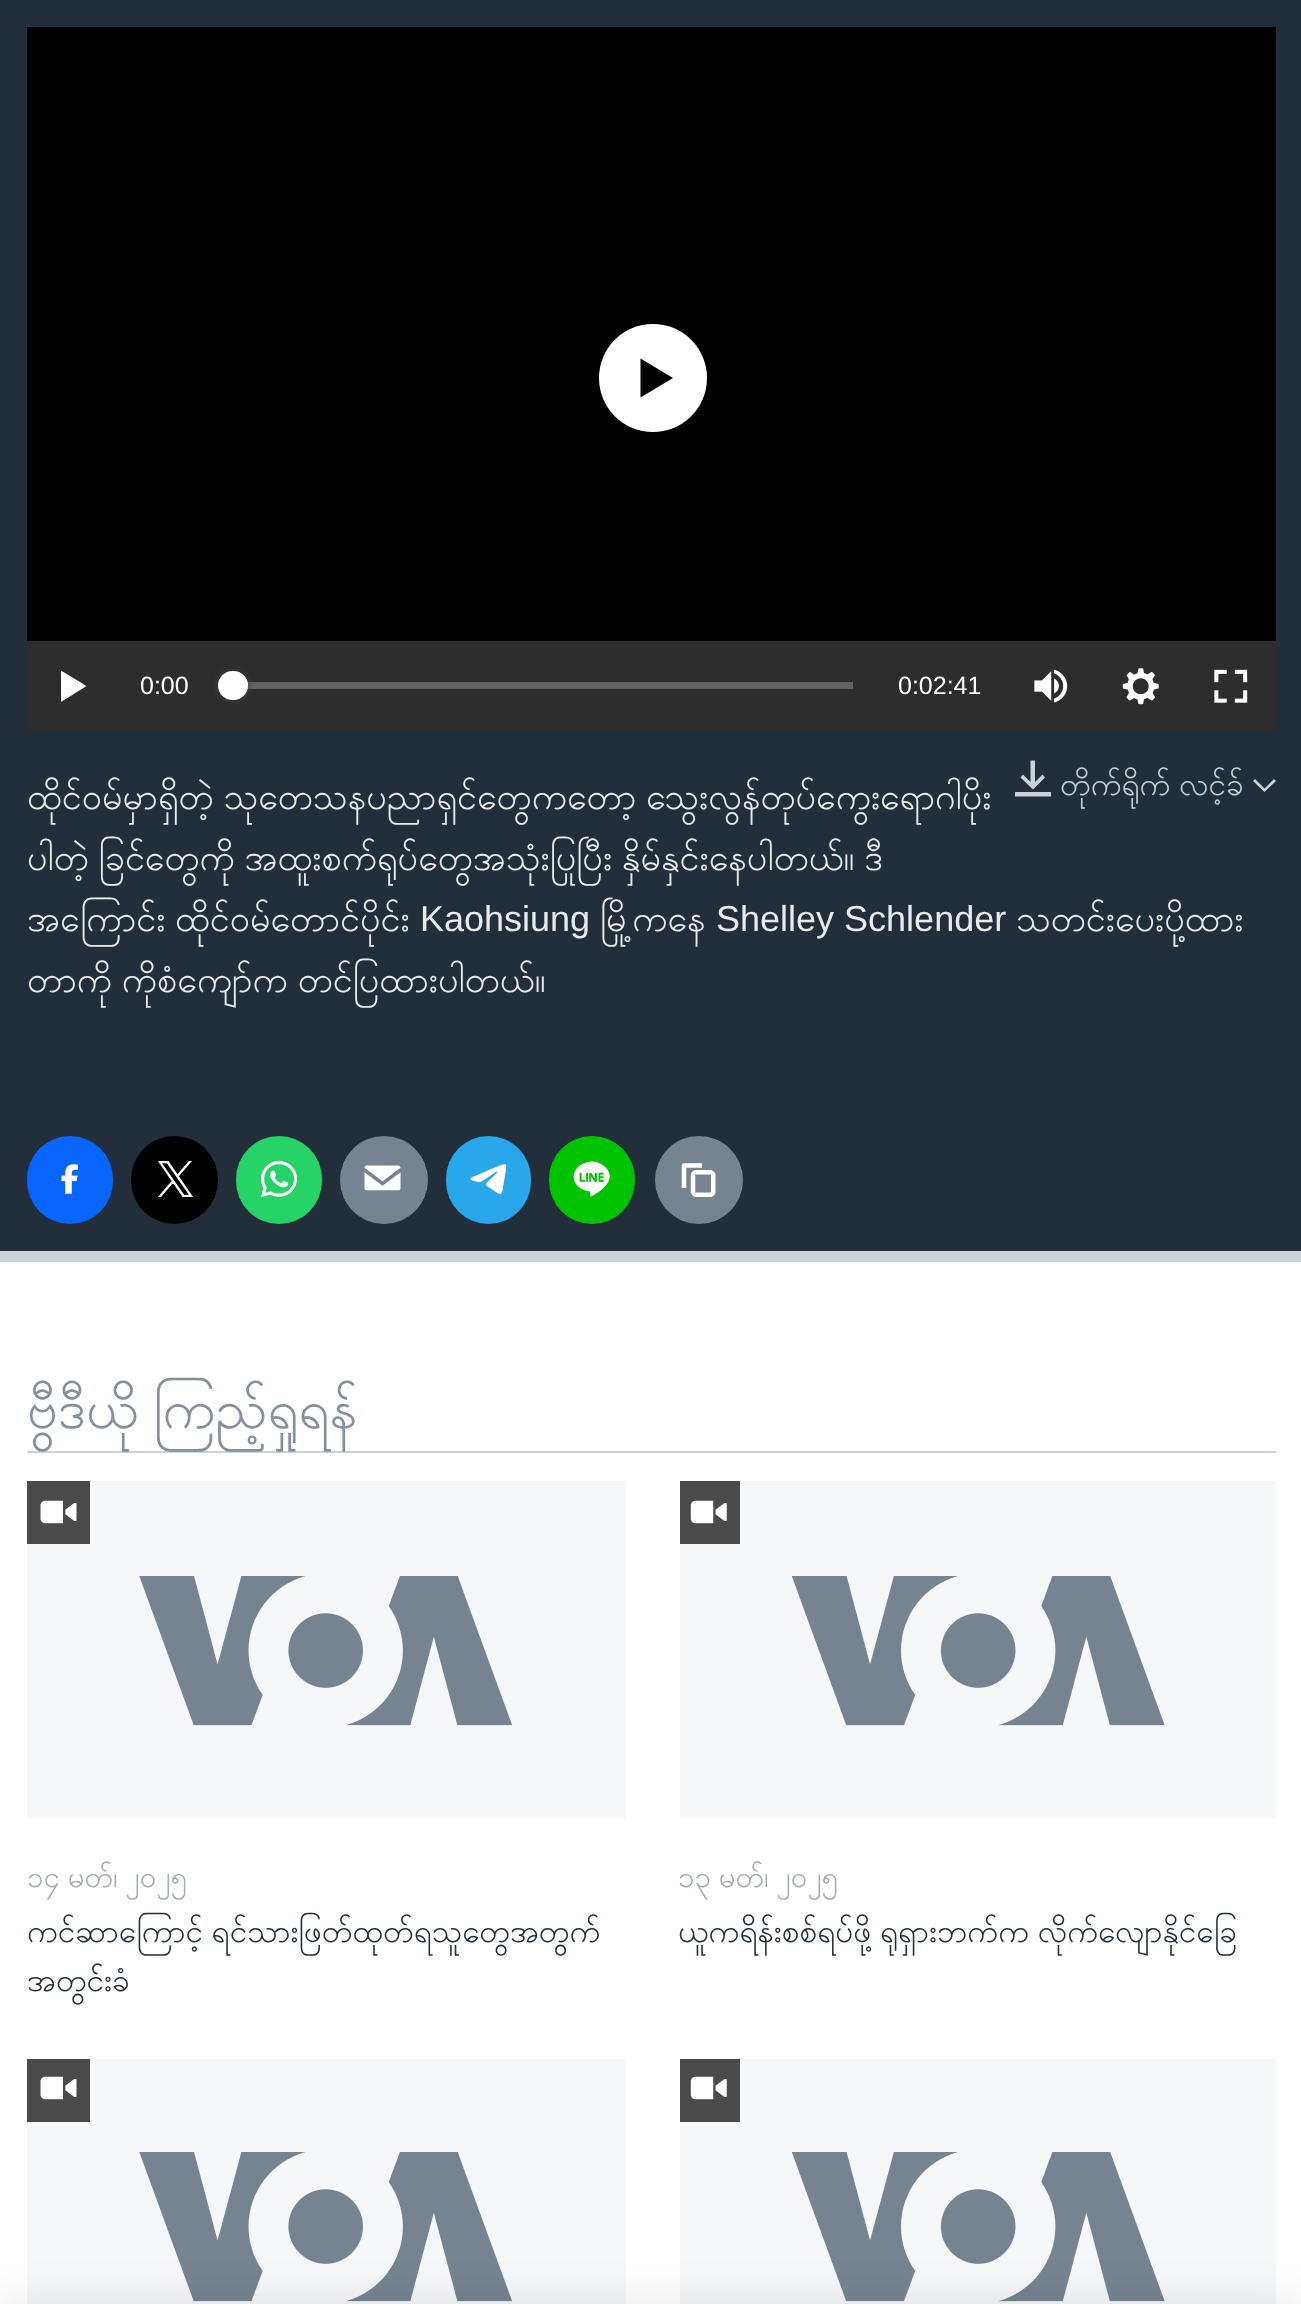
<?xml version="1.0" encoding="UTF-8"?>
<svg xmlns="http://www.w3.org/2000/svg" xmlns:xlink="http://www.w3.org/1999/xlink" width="1301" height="2304">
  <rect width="100%" height="100%" fill="#ffffff" />
  <rect width="1301" height="1251" fill="#222f3a" />
  <rect y="1251" width="1301" height="11" fill="#cbd1d6" />
  <rect x="27" y="27" width="1249" height="614" fill="#000000" />
  <circle cx="653" cy="378" r="54" fill="#ffffff" />
  <path d="M 640.5 397.5 l 32.5 -19.5 l -32.5 -19.5 z" fill="#000000" />
  <rect x="27" y="641" width="1249" height="90" fill="#2d2d2d" />
  <path d="M 61 702 l 25.5 -16 l -25.5 -15.5 z" fill="#ffffff" />
  <rect x="247" y="682" width="606" height="7" fill="#626262" />
  <rect x="218" y="671" width="30" height="29" rx="14.5" fill="#414144" filter="blur(3.5px)" />
  <rect x="218" y="671" width="30" height="29" rx="14.5" fill="#ffffff" />
  <image x="1034" y="669" width="34" height="34" xlink:href="image1.png" />
  <image x="1122" y="668" width="37" height="37" xlink:href="image2.png" />
  <image x="1214" y="669" width="34" height="34" xlink:href="image3.png" />
  <path d="M 1051 792 v 4.5 h -36 v -4.5 z m -6 -14.5 l -2.5 -3 l -7.5 7.5 v -21.5 h -4.5 v 21.5 l -7.5 -7.5 l -2.5 3 l 12.5 12 z" fill="#cbd1d6" />
  <path d="M 1253 781 l 11.5 11 l 11.5 -11 l -2 -2 l -9.5 9.5 l -9.5 -9.5 z" fill="#cbd1d6" />
  <rect x="27" y="1136" width="86" height="88" rx="43" fill="#0866ff" />
  <image x="61" y="1164" width="17" height="30" xlink:href="image4.png" />
  <rect x="131" y="1136" width="87" height="88" rx="43.5" fill="#000000" />
  <image x="158" y="1161" width="35" height="36" xlink:href="image5.png" />
  <rect x="236" y="1136" width="86" height="88" rx="43" fill="#25d366" />
  <image x="261" y="1161" width="36" height="36" xlink:href="image6.png" />
  <circle cx="384" cy="1180" r="44" fill="#768492" />
  <image x="364" y="1165" width="37" height="26" xlink:href="image7.png" />
  <rect x="446" y="1136" width="85" height="88" rx="42.5" fill="#28a8ea" />
  <image x="470" y="1164" width="37" height="30" xlink:href="image8.png" />
  <rect x="549" y="1136" width="86" height="88" rx="43" fill="#00c300" />
  <image x="573" y="1161" width="37" height="36" xlink:href="image9.png" />
  <circle cx="699" cy="1180" r="44" fill="#768492" />
  <image x="681" y="1163" width="35" height="34" xlink:href="image10.png" />
  <rect x="27" y="1451" width="1249" height="2" fill="#cbd1d6" />
  <rect x="27" y="1481" width="599" height="337" fill="#f6f7f8" />
  <image x="139" y="1576" width="373" height="150" xlink:href="image11.png" />
  <rect x="27" y="1481" width="63" height="63" fill="#4a4a4a" />
  <image x="40" y="1500" width="37" height="24" xlink:href="image12.png" />
  <rect x="680" y="1481" width="596" height="337" fill="#f6f7f8" />
  <image x="791" y="1576" width="374" height="150" xlink:href="image13.png" />
  <rect x="680" y="1481" width="60" height="63" fill="#4a4a4a" />
  <image x="690" y="1500" width="37" height="24" xlink:href="image14.png" />
  <rect x="27" y="2059" width="599" height="245" fill="#f6f7f8" />
  <image x="139" y="2152" width="373" height="150" xlink:href="image11.png" />
  <rect x="27" y="2059" width="63" height="63" fill="#4a4a4a" />
  <image x="40" y="2076" width="37" height="24" xlink:href="image12.png" />
  <rect x="680" y="2059" width="596" height="245" fill="#f6f7f8" />
  <image x="791" y="2152" width="374" height="150" xlink:href="image13.png" />
  <rect x="680" y="2059" width="60" height="63" fill="#4a4a4a" />
  <image x="690" y="2076" width="37" height="24" xlink:href="image14.png" />
  <rect y="2304" width="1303" height="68" fill="#000000" fill-opacity="0.1" filter="blur(22.5px)" />
  <text x="140" y="694" style="font-family: Liberation Sans; font-size: 25px; fill: #ffffff">0:00</text>
  <text x="898" y="694" style="font-family: Liberation Sans; font-size: 25px; fill: #ffffff">0:02:41</text>
  <text x="1060" y="795" word-spacing="-3" style="font-family: Padauk; font-size: 31.5px; fill: #cbd1d6">တိုက်ရိုက် လင့်ခ်</text>
  <text x="27" y="809" word-spacing="-3.5" style="font-family: Padauk; font-size: 36px; fill: #ebebeb">ထိုင်ဝမ်မှာရှိတဲ့ သုတေသနပညာရှင်တွေကတော့ သွေးလွန်တုပ်ကွေးရောဂါပိုး</text>
  <text x="27" y="870" word-spacing="-3.5" style="font-family: Padauk; font-size: 36px; fill: #ebebeb">ပါတဲ့ ခြင်တွေကို အထူးစက်ရုပ်တွေအသုံးပြုပြီး နှိမ်နှင်းနေပါတယ်။ ဒီ</text>
  <text x="27" y="931" style="font-family: Padauk; font-size: 36px; fill: #ebebeb">အကြောင်း</text>
  <text x="175" y="931" style="font-family: Padauk; font-size: 36px; fill: #ebebeb">ထိုင်ဝမ်တောင်ပိုင်း</text>
  <text x="420" y="931" style="font-family: Liberation Sans; font-size: 36px; fill: #ebebeb">Kaohsiung</text>
  <text x="600" y="931" style="font-family: Padauk; font-size: 36px; fill: #ebebeb">မြို့ကနေ</text>
  <text x="716" y="931" style="font-family: Liberation Sans; font-size: 36px; fill: #ebebeb">Shelley Schlender</text>
  <text x="1016" y="931" style="font-family: Padauk; font-size: 36px; fill: #ebebeb">သတင်းပေးပို့ထား</text>
  <text x="27" y="992" word-spacing="-3.5" style="font-family: Padauk; font-size: 36px; fill: #ebebeb">တာကို ကိုစံကျော်က တင်ပြထားပါတယ်။</text>
  <text x="27" y="1428" word-spacing="-5" style="font-family: Padauk; font-size: 54px; fill: #84919d">ဗွီဒီယို ကြည့်ရှုရန်</text>
  <text x="27" y="1887" word-spacing="-3" style="font-family: Padauk; font-size: 29.25px; fill: #a1aab4">၁၄ မတ်၊ ၂၀၂၅</text>
  <text x="27" y="1942" word-spacing="-3" style="font-family: Padauk; font-size: 31.5px; fill: #222f3a">ကင်ဆာကြောင့် ရင်သားဖြတ်ထုတ်ရသူတွေအတွက်</text>
  <text x="27" y="1991" style="font-family: Padauk; font-size: 31.5px; fill: #222f3a">အတွင်းခံ</text>
  <text x="678" y="1887" word-spacing="-3" style="font-family: Padauk; font-size: 29.25px; fill: #a1aab4">၁၃ မတ်၊ ၂၀၂၅</text>
  <text x="678" y="1942" word-spacing="-3" style="font-family: Padauk; font-size: 31.5px; fill: #222f3a">ယူကရိန်းစစ်ရပ်ဖို့ ရုရှားဘက်က လိုက်လျောနိုင်ခြေ</text>
</svg>
